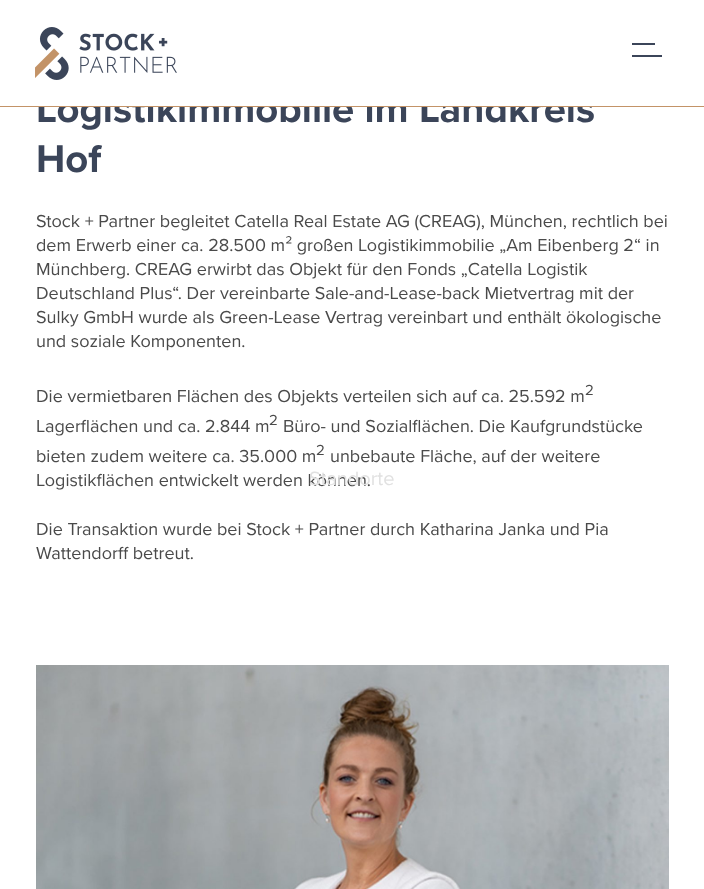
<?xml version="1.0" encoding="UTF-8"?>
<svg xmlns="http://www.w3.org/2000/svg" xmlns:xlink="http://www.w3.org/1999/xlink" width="704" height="889">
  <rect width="100%" height="100%" fill="#ffffff" />
  <image x="35" y="27" width="142" height="53" xlink:href="image1.png" />
  <rect x="632" y="43" width="23" height="2" fill="#3b4559" />
  <rect x="632" y="55" width="30" height="2" fill="#3b4559" />
  <image x="36" y="665" width="633" height="224" xlink:href="image2.png" />
  <text x="36" y="122" style="font-family: Proxima Nova; font-size: 40px; font-weight: bold; fill: #3b4559">Logistikimmobilie im Landkreis</text>
  <rect y="106" width="704" height="1" fill="#c39367" />
  <rect x="38" y="93" width="556" height="13" fill="#ffffff" />
  <text x="36" y="172" style="font-family: Proxima Nova; font-size: 40px; font-weight: bold; fill: #3b4559">Hof</text>
  <text x="36" y="227" style="font-family: Proxima Nova; font-size: 18px; fill: #4a4a4a">Stock + Partner begleitet Catella Real Estate AG (CREAG), München, rechtlich bei</text>
  <text x="36" y="251" style="font-family: Proxima Nova; font-size: 18px; fill: #4a4a4a">dem Erwerb einer ca. 28.500 m² großen Logistikimmobilie „Am Eibenberg 2“ in</text>
  <text x="36" y="275" style="font-family: Proxima Nova; font-size: 18px; fill: #4a4a4a">Münchberg. CREAG erwirbt das Objekt für den Fonds „Catella Logistik</text>
  <text x="36" y="299" style="font-family: Proxima Nova; font-size: 18px; fill: #4a4a4a">Deutschland Plus“. Der vereinbarte Sale-and-Lease-back Mietvertrag mit der</text>
  <text x="36" y="323" style="font-family: Proxima Nova; font-size: 18px; fill: #4a4a4a">Sulky GmbH wurde als Green-Lease Vertrag vereinbart und enthält ökologische</text>
  <text x="36" y="347" style="font-family: Proxima Nova; font-size: 18px; fill: #4a4a4a">und soziale Komponenten.</text>
  <text x="36" y="402" style="font-family: Proxima Nova; font-size: 18px; fill: #4a4a4a">Die vermietbaren Flächen des Objekts verteilen sich auf ca. 25.592 m</text>
  <text x="585" y="395" style="font-family: Proxima Nova; font-size: 15px; fill: #4a4a4a">2</text>
  <text x="36" y="432" style="font-family: Proxima Nova; font-size: 18px; fill: #4a4a4a">Lagerflächen und ca. 2.844 m</text>
  <text x="269" y="425" style="font-family: Proxima Nova; font-size: 15px; fill: #4a4a4a">2</text>
  <text x="283" y="432" style="font-family: Proxima Nova; font-size: 18px; fill: #4a4a4a">Büro- und Sozialflächen. Die Kaufgrundstücke</text>
  <text x="36" y="462" style="font-family: Proxima Nova; font-size: 18px; fill: #4a4a4a">bieten zudem weitere ca. 35.000 m</text>
  <text x="316" y="455" style="font-family: Proxima Nova; font-size: 15px; fill: #4a4a4a">2</text>
  <text x="330" y="462" style="font-family: Proxima Nova; font-size: 18px; fill: #4a4a4a">unbebaute Fläche, auf der weitere</text>
  <text x="36" y="486" style="font-family: Proxima Nova; font-size: 18px; fill: #4a4a4a">Logistikflächen entwickelt werden können.</text>
  <text x="36" y="535" style="font-family: Proxima Nova; font-size: 18px; fill: #4a4a4a">Die Transaktion wurde bei Stock + Partner durch Katharina Janka und Pia</text>
  <text x="36" y="559" style="font-family: Proxima Nova; font-size: 18px; fill: #4a4a4a">Wattendorff betreut.</text>
  <text x="309" y="485" style="font-family: Proxima Nova; font-size: 20px; fill: #e1e1e1">Standorte</text>
</svg>
